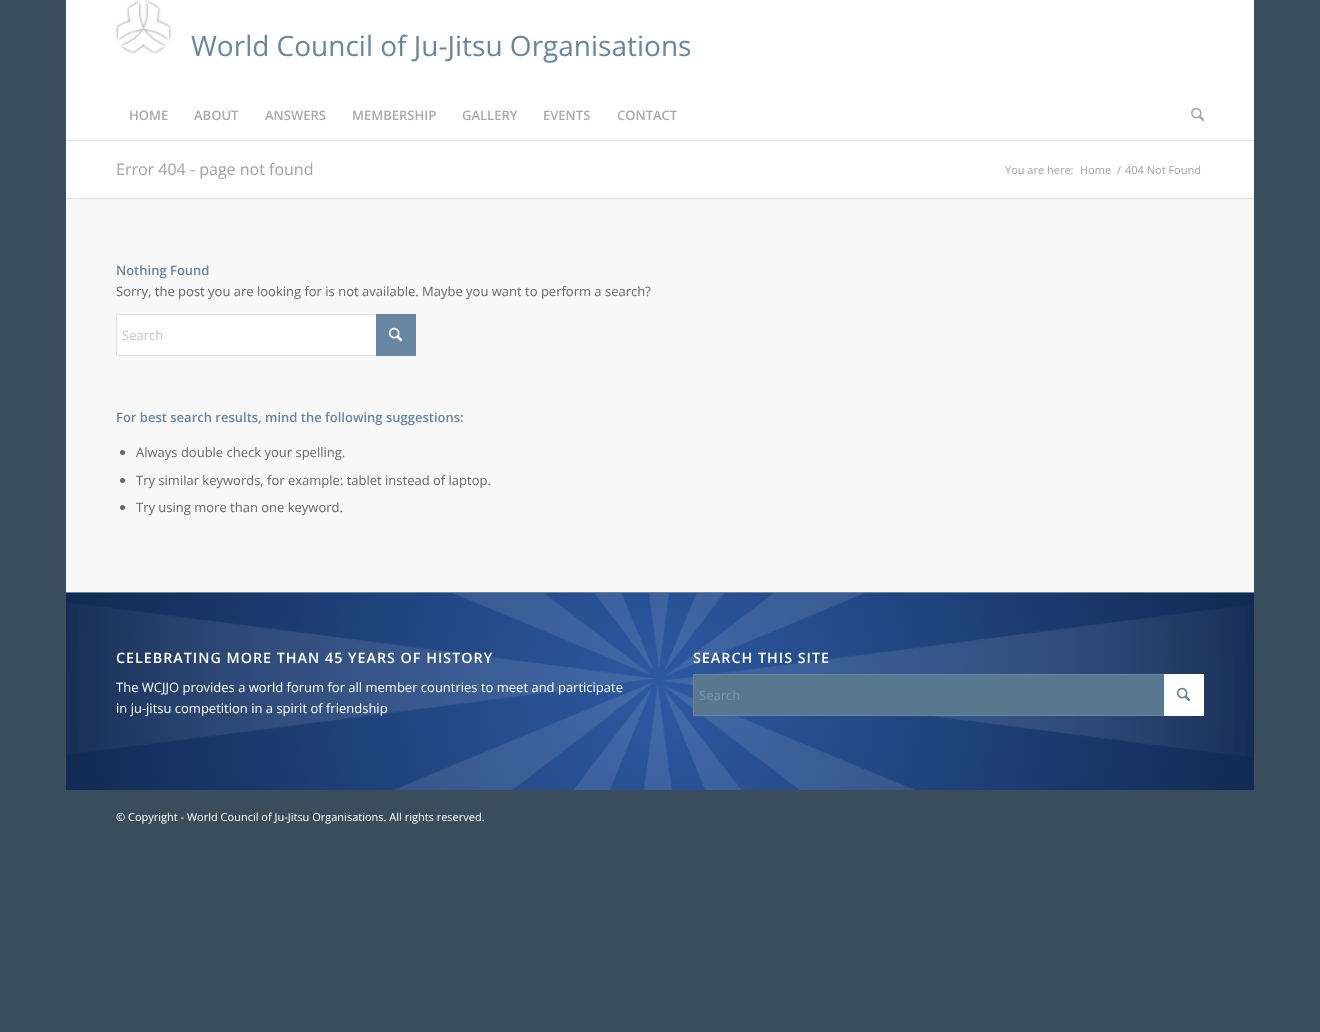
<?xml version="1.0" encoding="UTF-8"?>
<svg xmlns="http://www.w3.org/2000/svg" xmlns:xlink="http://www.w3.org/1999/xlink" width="1320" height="1032">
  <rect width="100%" height="100%" fill="#3a4d5c" />
  <rect x="66" width="1188" height="198" fill="#ffffff" />
  <image x="116" y="0" width="55" height="54" xlink:href="image1.png" />
  <image x="1191" y="107" width="13" height="15" xlink:href="image2.png" />
  <rect x="66" y="140" width="1188" height="1" fill="#e1e1e1" />
  <rect x="66" y="199" width="1188" height="393" fill="#f8f8f8" />
  <rect x="66" y="198" width="1188" height="1" fill="#e1e1e1" />
  <rect x="117" y="315" width="259" height="40" fill="#ffffff" />
  <rect x="116.5" y="314.5" width="299" height="41" fill="none" stroke="#e1e1e1" />
  <rect x="376" y="314" width="40" height="42" fill="#6786a1" />
  <image x="388" y="327" width="15" height="15" xlink:href="image3.png" />
  <circle cx="122.5" cy="452.5" r="2.5" fill="#666666" />
  <circle cx="122.5" cy="480.5" r="2.5" fill="#666666" />
  <circle cx="122.5" cy="507.5" r="2.5" fill="#666666" />
  <image x="66" y="593" width="1188" height="197" xlink:href="image4.png" />
  <rect x="66" y="592" width="1188" height="1" fill="#6786a1" />
  <rect x="694" y="675" width="470" height="40" fill="#59778f" />
  <rect x="693.5" y="674.5" width="510" height="41" fill="none" stroke="#6786a1" />
  <rect x="1164" y="674" width="40" height="42" fill="#ffffff" />
  <image x="1176" y="687" width="15" height="15" xlink:href="image5.png" />
  <text x="191" y="56" style="font-family: Open Sans; font-size: 28px; fill: #6786a1">World Council of Ju-Jitsu Organisations</text>
  <text x="129" y="120" style="font-family: Open Sans; font-size: 13px; font-weight: 600; fill: #aaaaaa">HOME</text>
  <text x="194" y="120" style="font-family: Open Sans; font-size: 13px; font-weight: 600; fill: #aaaaaa">ABOUT</text>
  <text x="265" y="120" style="font-family: Open Sans; font-size: 13px; font-weight: 600; fill: #aaaaaa">ANSWERS</text>
  <text x="352" y="120" style="font-family: Open Sans; font-size: 13px; font-weight: 600; fill: #aaaaaa">MEMBERSHIP</text>
  <text x="462" y="120" style="font-family: Open Sans; font-size: 13px; font-weight: 600; fill: #aaaaaa">GALLERY</text>
  <text x="543" y="120" style="font-family: Open Sans; font-size: 13px; font-weight: 600; fill: #aaaaaa">EVENTS</text>
  <text x="617" y="120" style="font-family: Open Sans; font-size: 13px; font-weight: 600; fill: #aaaaaa">CONTACT</text>
  <text x="116" y="175" style="font-family: Open Sans; font-size: 16px; fill: #a2a2a2">Error 404 - page not found</text>
  <text x="1005" y="174" style="font-family: Open Sans; font-size: 11px; fill: #a2a2a2">You are here:</text>
  <text x="1080" y="174" style="font-family: Open Sans; font-size: 11px; fill: #a2a2a2">Home</text>
  <text x="1117" y="174" style="font-family: Open Sans; font-size: 11px; fill: #a2a2a2">/</text>
  <text x="1125" y="174" style="font-family: Open Sans; font-size: 11px; fill: #a2a2a2">404 Not Found</text>
  <text x="116" y="275" style="font-family: Open Sans; font-size: 13px; font-weight: 600; fill: #6786a1">Nothing Found</text>
  <text x="116" y="296" style="font-family: Open Sans; font-size: 13px; fill: #666666">Sorry, the post you are looking for is not available. Maybe you want to perform a search?</text>
  <text x="122" y="340" style="font-family: Open Sans; font-size: 13px; fill: #c6c6c6">Search</text>
  <text x="116" y="422" style="font-family: Open Sans; font-size: 13px; font-weight: 600; fill: #6786a1">For best search results, mind the following suggestions:</text>
  <text x="136" y="457" style="font-family: Open Sans; font-size: 13px; fill: #666666">Always double check your spelling.</text>
  <text x="136" y="485" style="font-family: Open Sans; font-size: 13px; fill: #666666">Try similar keywords, for example: tablet instead of laptop.</text>
  <text x="136" y="512" style="font-family: Open Sans; font-size: 13px; fill: #666666">Try using more than one keyword.</text>
  <text x="116" y="663" style="font-family: Open Sans; font-size: 14.3px; font-weight: 600; letter-spacing: 1px; fill: #ffffff">CELEBRATING MORE THAN 45 YEARS OF HISTORY</text>
  <text x="116" y="692" style="font-family: Open Sans; font-size: 13px; fill: #ffffff">The WCJJO provides a world forum for all member countries to meet and participate</text>
  <text x="116" y="713" style="font-family: Open Sans; font-size: 13px; fill: #ffffff">in ju-jitsu competition in a spirit of friendship</text>
  <text x="693" y="663" style="font-family: Open Sans; font-size: 14.3px; font-weight: 600; letter-spacing: 1px; fill: #ffffff">SEARCH THIS SITE</text>
  <text x="699" y="700" style="font-family: Open Sans; font-size: 13px; fill: #7b98ae">Search</text>
  <text x="116" y="821" style="font-family: Open Sans; font-size: 11px; fill: #ffffff">© Copyright - World Council of Ju-Jitsu Organisations. All rights reserved.</text>
</svg>
